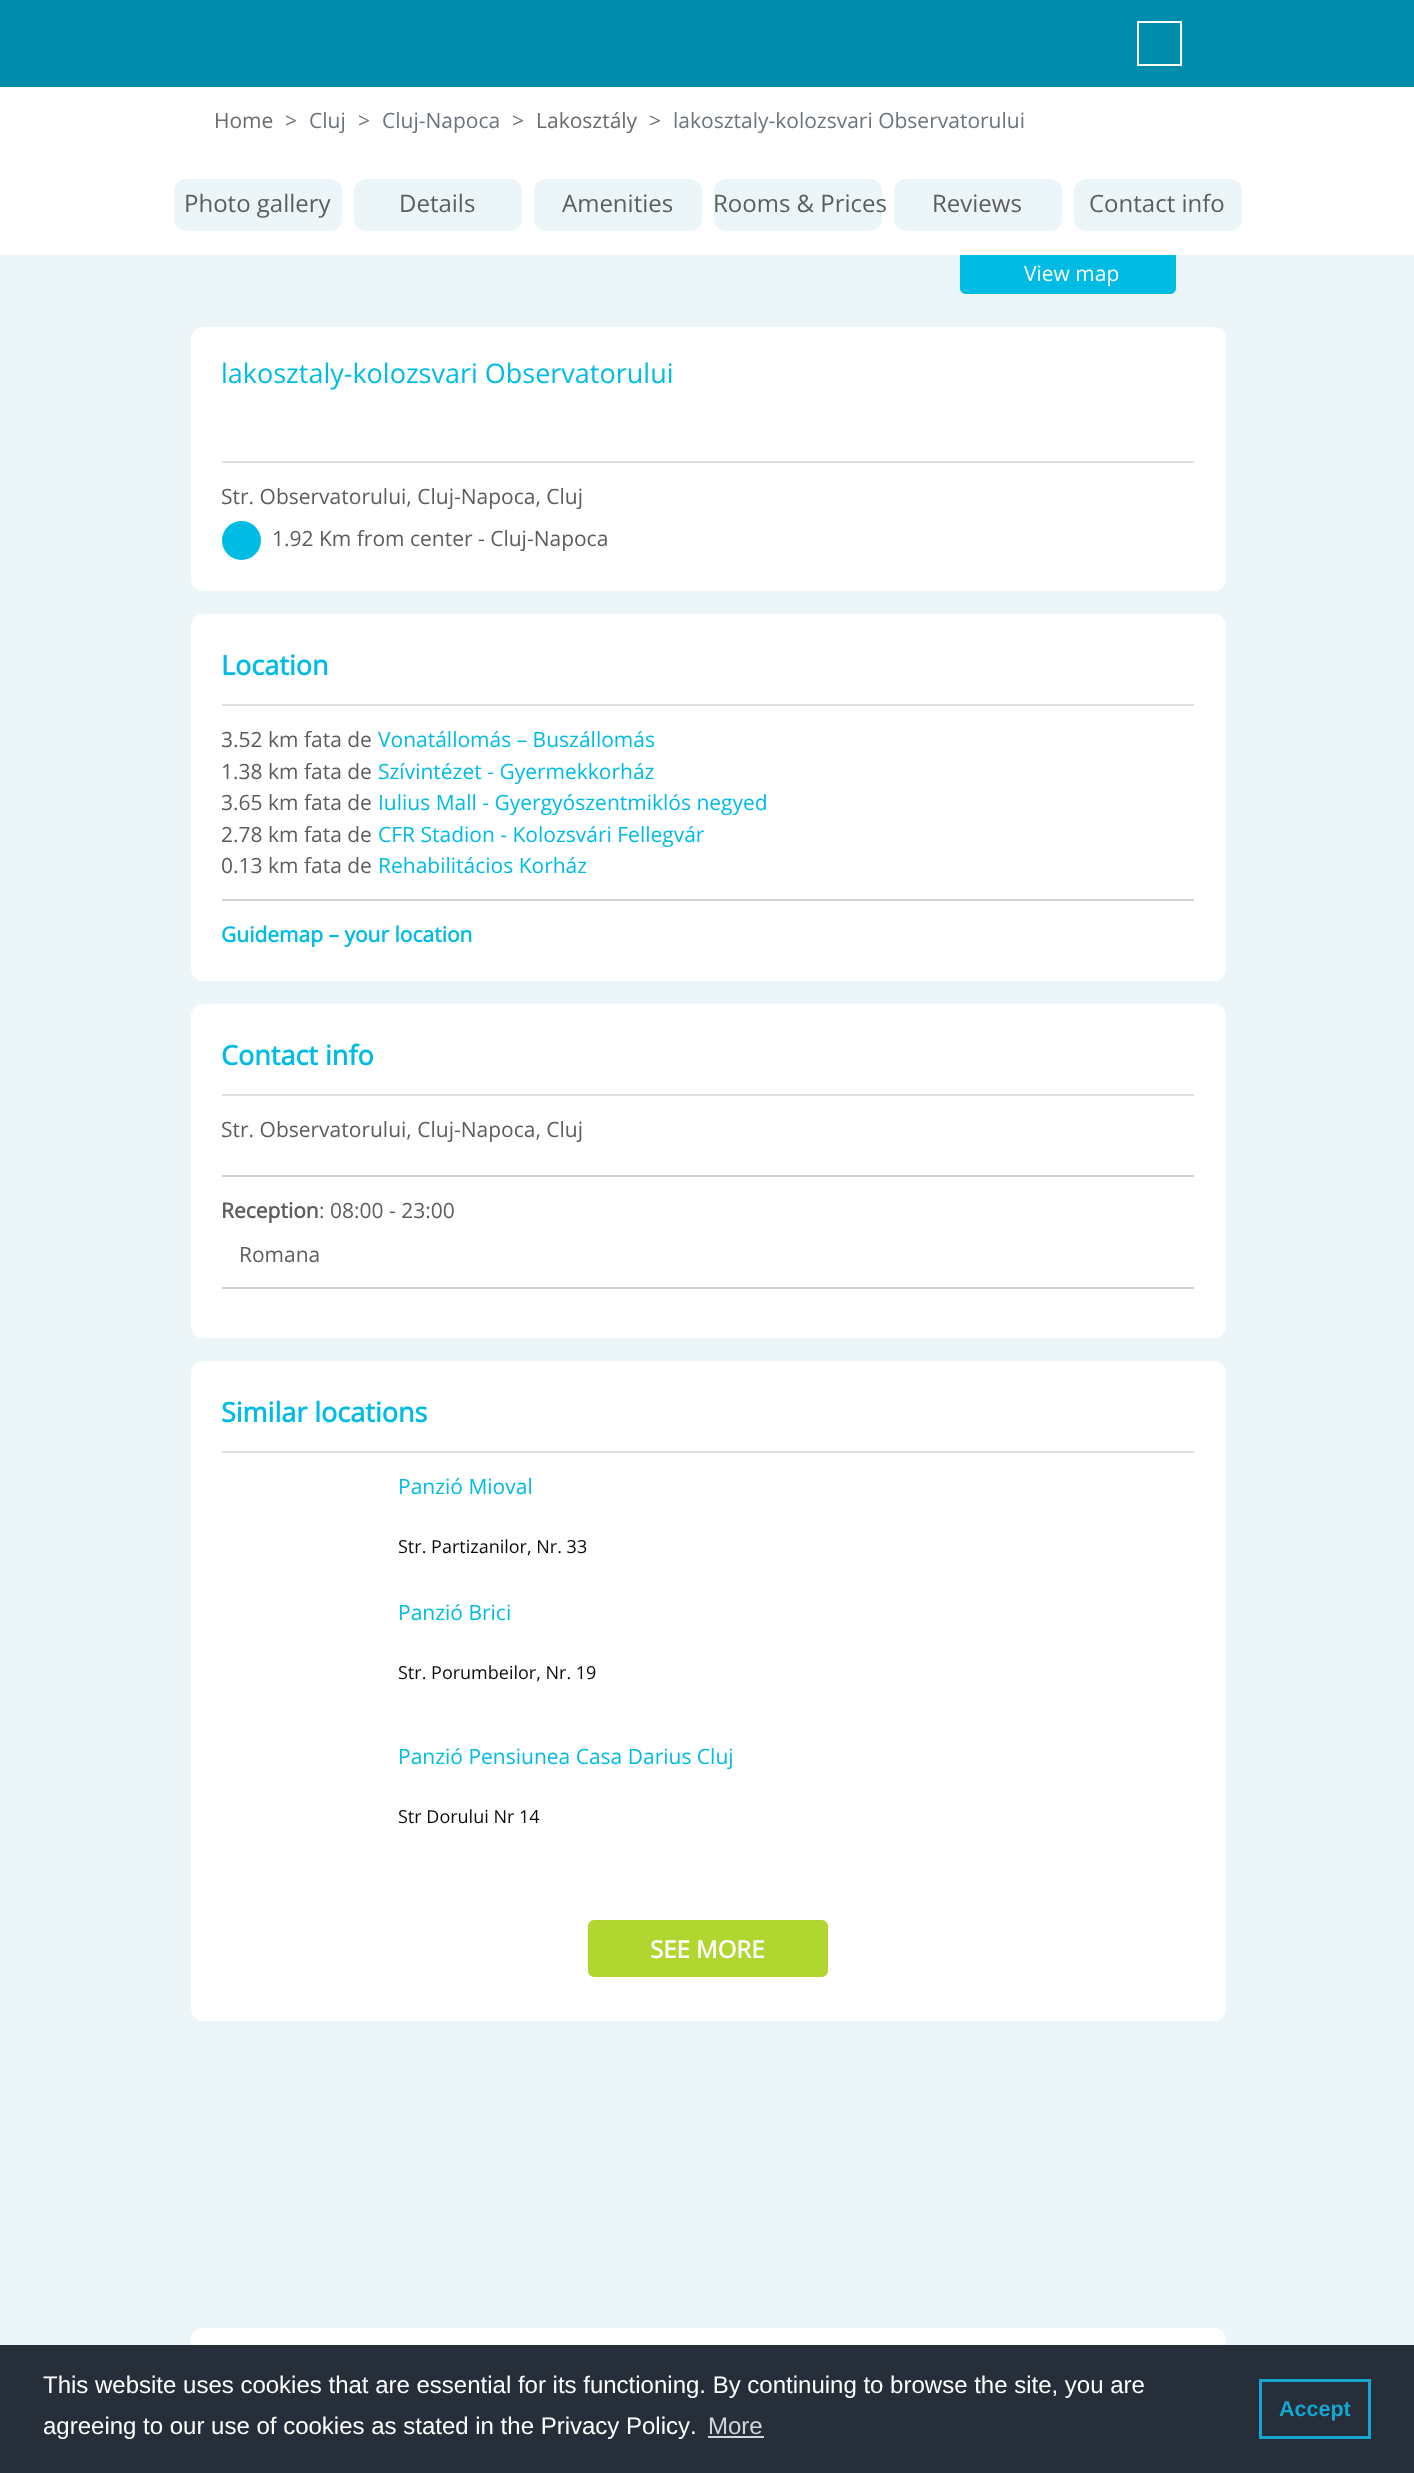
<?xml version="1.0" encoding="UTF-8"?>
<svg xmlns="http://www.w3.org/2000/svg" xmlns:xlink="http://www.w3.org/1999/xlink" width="1414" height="2473">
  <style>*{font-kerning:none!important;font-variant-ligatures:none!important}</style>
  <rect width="100%" height="100%" fill="#ecf6f8" />
  <rect width="1414" height="87" fill="#008dab" />
  <rect x="1138" y="22" width="43" height="43" fill="none" stroke="#ffffff" stroke-width="2" />
  <rect y="87" width="1414" height="168" fill="#ffffff" />
  <rect x="174" y="179" width="168" height="52" rx="12" fill="#ecf6f8" />
  <rect x="354" y="179" width="168" height="52" rx="12" fill="#ecf6f8" />
  <rect x="534" y="179" width="168" height="52" rx="12" fill="#ecf6f8" />
  <rect x="714" y="179" width="168" height="52" rx="12" fill="#ecf6f8" />
  <rect x="894" y="179" width="168" height="52" rx="12" fill="#ecf6f8" />
  <rect x="1074" y="179" width="168" height="52" rx="12" fill="#ecf6f8" />
  <path d="M 960 255 h 216 v 33 c 0 3.5 -2.5 6 -6 6 h -204 c -3.5 0 -6 -2.5 -6 -6 z" fill="#00bce4" />
  <rect x="192" y="328" width="1033" height="262" rx="11" fill="#ffffff" stroke="#ffffff" stroke-width="2" />
  <rect x="222" y="461" width="972" height="2" fill="#dfdfdf" />
  <circle cx="241.5" cy="540.5" r="19.5" fill="#00bce4" />
  <rect x="192" y="615" width="1033" height="365" rx="11" fill="#ffffff" stroke="#ffffff" stroke-width="2" />
  <rect x="222" y="704" width="972" height="2" fill="#dfdfdf" />
  <rect x="222" y="899" width="972" height="2" fill="#d3d3d3" />
  <rect x="192" y="1005" width="1033" height="332" rx="11" fill="#ffffff" stroke="#ffffff" stroke-width="2" />
  <rect x="222" y="1094" width="972" height="2" fill="#dfdfdf" />
  <rect x="222" y="1175" width="972" height="2" fill="#d3d3d3" />
  <rect x="222" y="1287" width="972" height="2" fill="#d3d3d3" />
  <rect x="192" y="1362" width="1033" height="658" rx="11" fill="#ffffff" stroke="#ffffff" stroke-width="2" />
  <rect x="222" y="1451" width="972" height="2" fill="#dfdfdf" />
  <rect x="589" y="1921" width="238" height="55" rx="5" fill="#b2d630" stroke="#b2d630" stroke-width="2" />
  <rect x="192" y="2329" width="1033" height="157" rx="11" fill="#ffffff" stroke="#ffffff" stroke-width="2" />
  <rect y="2345" width="1414" height="128" fill="#252e39" />
  <rect x="708" y="2436" width="56" height="2" fill="#d3d5d7" />
  <rect x="1260.5" y="2380.5" width="109" height="57" fill="none" stroke="#14a7d0" stroke-width="3" />
  <text x="214" y="128" style="font-family: Open Sans; font-size: 21px; fill: #6b6b6b">Home</text>
  <text x="285" y="128" style="font-family: Open Sans; font-size: 21px; fill: #6c757d">&gt;</text>
  <text x="309" y="128" style="font-family: Open Sans; font-size: 21px; fill: #6c757d">Cluj</text>
  <text x="358" y="128" style="font-family: Open Sans; font-size: 21px; fill: #6c757d">&gt;</text>
  <text x="382" y="128" style="font-family: Open Sans; font-size: 21px; fill: #6c757d">Cluj-Napoca</text>
  <text x="512" y="128" style="font-family: Open Sans; font-size: 21px; fill: #6c757d">&gt;</text>
  <text x="536" y="128" style="font-family: Open Sans; font-size: 21px; fill: #6b6b6b">Lakosztály</text>
  <text x="649" y="128" style="font-family: Open Sans; font-size: 21px; fill: #6c757d">&gt;</text>
  <text x="673" y="128" style="font-family: Open Sans; font-size: 21px; fill: #6c757d">lakosztaly-kolozsvari Observatorului</text>
  <text x="184" y="212" style="font-family: Open Sans; font-size: 24px; fill: #5d5d5d">Photo gallery</text>
  <text x="399" y="212" style="font-family: Open Sans; font-size: 24px; fill: #5d5d5d">Details</text>
  <text x="562" y="212" style="font-family: Open Sans; font-size: 24px; fill: #5d5d5d">Amenities</text>
  <text x="713" y="212" style="font-family: Open Sans; font-size: 24px; fill: #5d5d5d">Rooms &amp; Prices</text>
  <text x="932" y="212" style="font-family: Open Sans; font-size: 24px; fill: #5d5d5d">Reviews</text>
  <text x="1089" y="212" style="font-family: Open Sans; font-size: 24px; fill: #5d5d5d">Contact info</text>
  <text x="1024" y="281" style="font-family: Open Sans; font-size: 21px; fill: #ffffff">View map</text>
  <text x="221" y="383" style="font-family: Open Sans; font-size: 27px; fill: #00bce4">lakosztaly-kolozsvari Observatorului</text>
  <text x="221" y="504" style="font-family: Open Sans; font-size: 21px; fill: #5d5d5d">Str. Observatorului, Cluj-Napoca, Cluj</text>
  <text x="272" y="546" style="font-family: Open Sans; font-size: 21px; fill: #5d5d5d">1.92 Km from center - Cluj-Napoca</text>
  <text x="221" y="675" style="font-family: Open Sans; font-size: 27px; font-weight: bold; fill: #00bce4">Location</text>
  <text x="221" y="747" style="font-family: Open Sans; font-size: 21px; fill: #5d5d5d">3.52 km fata de</text>
  <text x="378" y="747" style="font-family: Open Sans; font-size: 21px; fill: #00bce4">Vonatállomás – Buszállomás</text>
  <text x="221" y="779" style="font-family: Open Sans; font-size: 21px; fill: #5d5d5d">1.38 km fata de</text>
  <text x="378" y="779" style="font-family: Open Sans; font-size: 21px; fill: #00bce4">Szívintézet - Gyermekkorház</text>
  <text x="221" y="810" style="font-family: Open Sans; font-size: 21px; fill: #5d5d5d">3.65 km fata de</text>
  <text x="378" y="810" style="font-family: Open Sans; font-size: 21px; fill: #00bce4">Iulius Mall - Gyergyószentmiklós negyed</text>
  <text x="221" y="842" style="font-family: Open Sans; font-size: 21px; fill: #5d5d5d">2.78 km fata de</text>
  <text x="378" y="842" style="font-family: Open Sans; font-size: 21px; fill: #00bce4">CFR Stadion - Kolozsvári Fellegvár</text>
  <text x="221" y="873" style="font-family: Open Sans; font-size: 21px; fill: #5d5d5d">0.13 km fata de</text>
  <text x="378" y="873" style="font-family: Open Sans; font-size: 21px; fill: #00bce4">Rehabilitácios Korház</text>
  <text x="221" y="942" style="font-family: Open Sans; font-size: 21px; font-weight: bold; fill: #00bce4">Guidemap – your location</text>
  <text x="221" y="1065" style="font-family: Open Sans; font-size: 27px; font-weight: bold; fill: #00bce4">Contact info</text>
  <text x="221" y="1137" style="font-family: Open Sans; font-size: 21px; fill: #5d5d5d">Str. Observatorului, Cluj-Napoca, Cluj</text>
  <text x="221" y="1218" style="font-family: Open Sans; font-size: 21px; font-weight: bold; fill: #5d5d5d">Reception</text>
  <text x="319" y="1218" style="font-family: Open Sans; font-size: 21px; fill: #5d5d5d">: 08:00 - 23:00</text>
  <text x="239" y="1262" style="font-family: Open Sans; font-size: 21px; fill: #5d5d5d">Romana</text>
  <text x="221" y="1422" style="font-family: Open Sans; font-size: 27px; font-weight: bold; fill: #00bce4">Similar locations</text>
  <text x="398" y="1494" style="font-family: Open Sans; font-size: 21px; fill: #00bce4">Panzió Mioval</text>
  <text x="398" y="1553" style="font-family: Open Sans; font-size: 18px; fill: #0b0b0b">Str. Partizanilor, Nr. 33</text>
  <text x="398" y="1620" style="font-family: Open Sans; font-size: 21px; fill: #00bce4">Panzió Brici</text>
  <text x="398" y="1679" style="font-family: Open Sans; font-size: 18px; fill: #0b0b0b">Str. Porumbeilor, Nr. 19</text>
  <text x="398" y="1764" style="font-family: Open Sans; font-size: 21px; fill: #00bce4">Panzió Pensiunea Casa Darius Cluj</text>
  <text x="398" y="1823" style="font-family: Open Sans; font-size: 18px; fill: #0b0b0b">Str Dorului Nr 14</text>
  <text x="650" y="1958" style="font-family: Open Sans; font-size: 24px; font-weight: bold; fill: #ffffff">SEE MORE</text>
  <text x="43" y="2393" style="font-family: Liberation Sans; font-size: 24px; fill: #ffffff">This website uses cookies that are essential for its functioning. By continuing to browse the site, you are</text>
  <text x="43" y="2434" style="font-family: Liberation Sans; font-size: 24px; fill: #ffffff">agreeing to our use of cookies as stated in the Privacy Policy.</text>
  <text x="708" y="2434" style="font-family: Liberation Sans; font-size: 24px; fill: #d3d5d7">More</text>
  <text x="1279" y="2416" style="font-family: Liberation Sans; font-size: 21.5px; font-weight: bold; fill: #14a7d0">Accept</text>
</svg>
